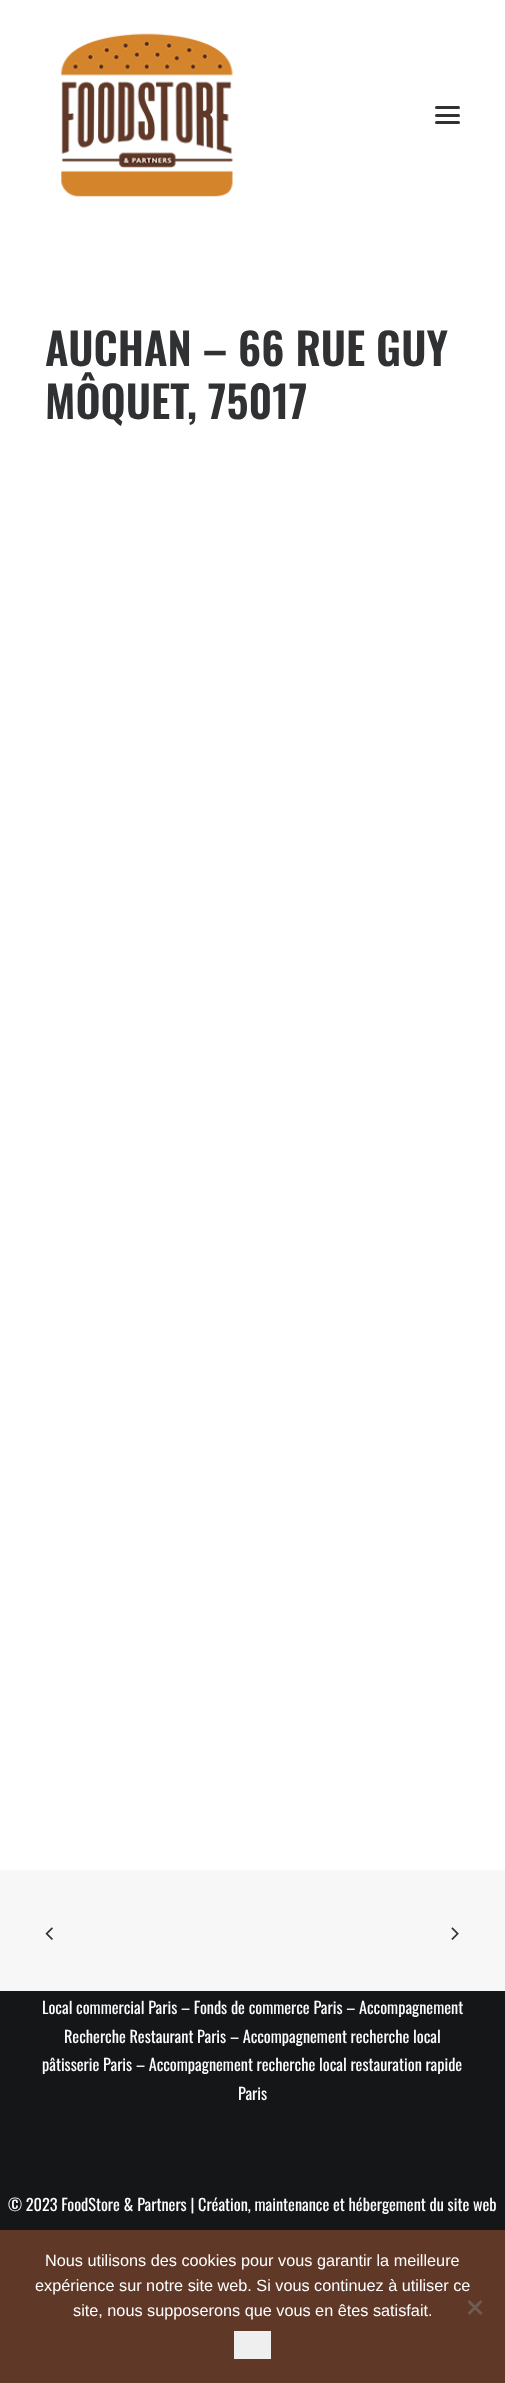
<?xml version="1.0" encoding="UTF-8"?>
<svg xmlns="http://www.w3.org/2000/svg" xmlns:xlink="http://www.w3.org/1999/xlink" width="505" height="2383">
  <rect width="100%" height="100%" fill="#f7f7f7" />
  <rect width="505" height="1870" fill="#ffffff" />
  <image x="61" y="33" width="172" height="164" xlink:href="image1.png" />
  <rect x="435" y="114" width="25" height="3" rx="1.5" fill="#303133" />
  <rect x="435" y="106" width="25" height="3" rx="1.5" fill="#303133" />
  <rect x="435" y="121" width="25" height="3" rx="1.5" fill="#303133" />
  <image x="45" y="1927" width="8" height="13" xlink:href="image2.png" />
  <image x="451" y="1927" width="8" height="13" xlink:href="image3.png" />
  <rect y="1991" width="505" height="239" fill="#141618" />
  <rect y="2230" width="505" height="153" fill="#5f3827" />
  <path d="M 480.5 2300 l 2 2 l -13 13 l -2 -2 z" fill="#705c54" />
  <path d="M 467.5 2302 l 2 -2 l 13 13 l -2 2 z" fill="#705c54" />
  <rect x="234" y="2331" width="37" height="28" fill="#efefef" />
  <text x="45" y="366" style="font-family: Oswald; font-size: 43.75px; font-weight: 600; fill: #303133">AUCHAN – 66 RUE GUY</text>
  <text x="45" y="419" style="font-family: Oswald; font-size: 43.75px; font-weight: 600; fill: #303133">MÔQUET, 75017</text>
  <text x="42" y="2014" style="font-family: Oswald; font-size: 16.25px; fill: #ffffff">Local commercial Paris – Fonds de commerce Paris – Accompagnement</text>
  <text x="64" y="2043" style="font-family: Oswald; font-size: 16.25px; fill: #ffffff">Recherche Restaurant Paris – Accompagnement recherche local</text>
  <text x="42" y="2071" style="font-family: Oswald; font-size: 16.25px; fill: #ffffff">pâtisserie Paris – Accompagnement recherche local restauration rapide</text>
  <text x="238" y="2100" style="font-family: Oswald; font-size: 16.25px; fill: #ffffff">Paris</text>
  <text x="8" y="2211" style="font-family: Oswald; font-size: 16.25px; fill: #ffffff">© 2023 FoodStore &amp; Partners | Création, maintenance et hébergement du site web</text>
  <text x="45" y="2266" style="font-family: Liberation Sans; font-size: 16.25px; fill: #ffffff">Nous utilisons des cookies pour vous garantir la meilleure</text>
  <text x="35" y="2291" style="font-family: Liberation Sans; font-size: 16.25px; fill: #ffffff">expérience sur notre site web. Si vous continuez à utiliser ce</text>
  <text x="73" y="2316" style="font-family: Liberation Sans; font-size: 16.25px; fill: #ffffff">site, nous supposerons que vous en êtes satisfait.</text>
</svg>
